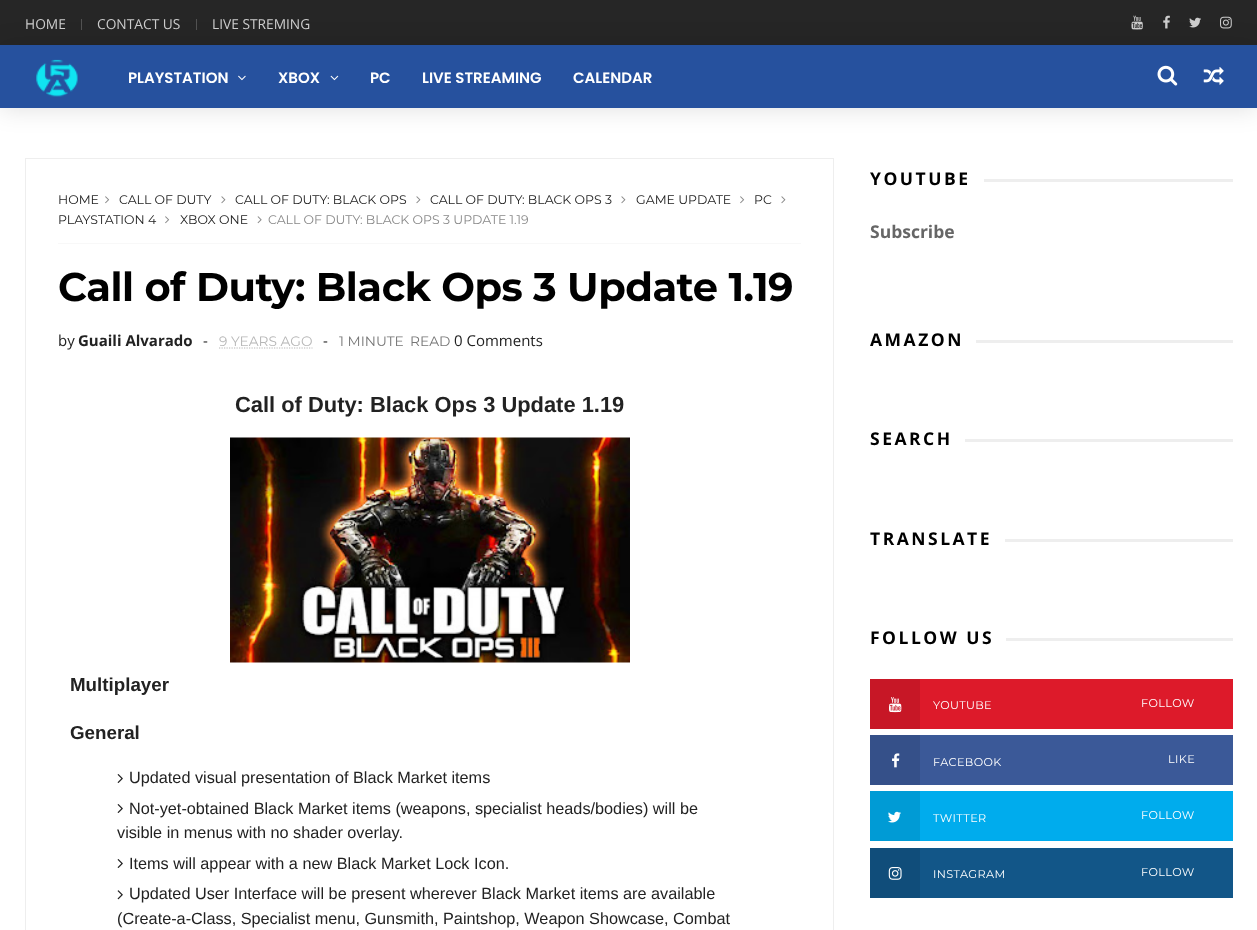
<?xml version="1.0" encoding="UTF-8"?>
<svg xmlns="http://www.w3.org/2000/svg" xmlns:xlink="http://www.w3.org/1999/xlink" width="1257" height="930">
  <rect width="100%" height="100%" fill="#ffffff" />
  <rect width="1257" height="45" fill="#262626" />
  <rect y="46" width="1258" height="63" fill="#000000" fill-opacity="0.12" filter="blur(12.5px)" />
  <rect x="81" y="19" width="1" height="11" fill="#515151" />
  <rect x="196" y="19" width="1" height="11" fill="#515151" />
  <image x="1131" y="15" width="12" height="15" xlink:href="image1.png" />
  <image x="1163" y="15" width="7" height="14" xlink:href="image2.png" />
  <image x="1189" y="17" width="12" height="11" xlink:href="image3.png" />
  <image x="1220" y="16" width="12" height="13" xlink:href="image4.png" />
  <rect y="45" width="1257" height="63" fill="#26519e" />
  <image x="36" y="59" width="42" height="38" xlink:href="image5.png" />
  <image x="238" y="75" width="8" height="6" xlink:href="image6.png" />
  <image x="330" y="75" width="9" height="6" xlink:href="image7.png" />
  <image x="1157" y="65" width="21" height="21" xlink:href="image8.png" />
  <image x="1203" y="67" width="21" height="18" xlink:href="image9.png" />
  <rect x="25.5" y="158.5" width="808" height="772" fill="none" stroke="#eeeeee" />
  <image x="105" y="196" width="5" height="8" xlink:href="image10.png" />
  <image x="221" y="196" width="5" height="8" xlink:href="image11.png" />
  <image x="416" y="196" width="5" height="8" xlink:href="image11.png" />
  <image x="621" y="196" width="5" height="8" xlink:href="image11.png" />
  <image x="740" y="196" width="5" height="8" xlink:href="image10.png" />
  <image x="781" y="196" width="5" height="8" xlink:href="image11.png" />
  <image x="165" y="216" width="5" height="8" xlink:href="image10.png" />
  <image x="257" y="216" width="5" height="8" xlink:href="image12.png" />
  <rect x="58" y="243" width="743" height="1" fill="#f8f8f8" />
  <path d="M 219 348 h 93.5" fill="none" stroke="#b7b7b7" stroke-width="1.2" stroke-dasharray="1.25 1.25" />
  <image x="230" y="437" width="400" height="226" xlink:href="image13.png" />
  <image x="117" y="774" width="6" height="9" xlink:href="image14.png" />
  <image x="117" y="804" width="6" height="9" xlink:href="image14.png" />
  <image x="117" y="859" width="6" height="9" xlink:href="image14.png" />
  <image x="117" y="890" width="6" height="10" xlink:href="image15.png" />
  <rect x="984" y="179" width="249" height="3" fill="#eeeeee" />
  <rect x="976" y="340" width="257" height="3" fill="#eeeeee" />
  <rect x="965" y="439" width="268" height="3" fill="#eeeeee" />
  <rect x="1005" y="539" width="228" height="3" fill="#eeeeee" />
  <rect x="1006" y="638" width="227" height="3" fill="#eeeeee" />
  <rect x="920" y="679" width="313" height="50" fill="#dd1a2a" />
  <rect x="870" y="679" width="50" height="50" fill="#c71726" />
  <image x="889" y="697" width="13" height="16" xlink:href="image16.png" />
  <rect x="920" y="735" width="313" height="50" fill="#3b5998" />
  <rect x="870" y="735" width="50" height="50" fill="#355089" />
  <image x="892" y="753" width="8" height="15" xlink:href="image17.png" />
  <rect x="920" y="791" width="313" height="50" fill="#00aced" />
  <rect x="870" y="791" width="50" height="50" fill="#009bd5" />
  <image x="888" y="811" width="13" height="12" xlink:href="image18.png" />
  <rect x="920" y="848" width="313" height="50" fill="#125688" />
  <rect x="870" y="848" width="50" height="50" fill="#104d7a" />
  <image x="888" y="867" width="14" height="13" xlink:href="image19.png" />
  <text x="25" y="29" style="font-family: Open Sans; font-size: 13.75px; fill: #cccccc">HOME</text>
  <text x="97" y="29" style="font-family: Open Sans; font-size: 13.75px; fill: #cccccc">CONTACT US</text>
  <text x="212" y="29" style="font-family: Open Sans; font-size: 13.75px; fill: #cccccc">LIVE STREMING</text>
  <text x="128" y="83" style="font-family: Poppins; font-size: 15px; font-weight: 600; fill: #ffffff">PLAYSTATION</text>
  <text x="278" y="83" style="font-family: Poppins; font-size: 15px; font-weight: 600; fill: #ffffff">XBOX</text>
  <text x="370" y="83" style="font-family: Poppins; font-size: 15px; font-weight: 600; fill: #ffffff">PC</text>
  <text x="422" y="83" style="font-family: Poppins; font-size: 15px; font-weight: 600; fill: #ffffff">LIVE STREAMING</text>
  <text x="573" y="83" style="font-family: Poppins; font-size: 15px; font-weight: 600; fill: #ffffff">CALENDAR</text>
  <text x="58" y="204" style="font-family: Montserrat; font-size: 12.5px; fill: #222222">HOME</text>
  <text x="119" y="204" style="font-family: Montserrat; font-size: 12.5px; fill: #222222">CALL OF DUTY</text>
  <text x="235" y="204" style="font-family: Montserrat; font-size: 12.5px; fill: #222222">CALL OF DUTY: BLACK OPS</text>
  <text x="430" y="204" style="font-family: Montserrat; font-size: 12.5px; fill: #222222">CALL OF DUTY: BLACK OPS 3</text>
  <text x="636" y="204" style="font-family: Montserrat; font-size: 12.5px; fill: #222222">GAME UPDATE</text>
  <text x="754" y="204" style="font-family: Montserrat; font-size: 12.5px; fill: #222222">PC</text>
  <text x="58" y="224" style="font-family: Montserrat; font-size: 12.5px; fill: #222222">PLAYSTATION 4</text>
  <text x="180" y="224" style="font-family: Montserrat; font-size: 12.5px; fill: #222222">XBOX ONE</text>
  <text x="268" y="224" style="font-family: Montserrat; font-size: 12.5px; fill: #888888">CALL OF DUTY: BLACK OPS 3 UPDATE 1.19</text>
  <text x="58" y="301" style="font-family: Montserrat; font-size: 40px; font-weight: bold; letter-spacing: -0.5px; fill: #000000">Call of Duty: Black Ops 3 Update 1.19</text>
  <text x="58" y="346" style="font-family: Open Sans; font-size: 15px; fill: #222222">by</text>
  <text x="78" y="346" style="font-family: Open Sans; font-size: 15px; font-weight: bold; fill: #222222">Guaili Alvarado</text>
  <text x="203" y="346" style="font-family: Open Sans; font-size: 15px; fill: #222222">-</text>
  <text x="219" y="346" style="font-family: Montserrat; font-size: 13.75px; fill: #b7b7b7">9 YEARS AGO</text>
  <text x="323" y="346" style="font-family: Open Sans; font-size: 15px; fill: #222222">-</text>
  <text x="339" y="346" style="font-family: Montserrat; font-size: 13.75px; fill: #757575">1 MINUTE</text>
  <text x="410" y="346" style="font-family: Montserrat; font-size: 13.75px; fill: #757575">READ</text>
  <text x="454" y="346" style="font-family: Open Sans; font-size: 15px; fill: #222222">0 Comments</text>
  <text x="235" y="412" style="font-family: Liberation Sans; font-size: 21.9px; font-weight: bold; fill: #222222">Call of Duty: Black Ops 3 Update 1.19</text>
  <text x="70" y="691" style="font-family: Liberation Sans; font-size: 18.75px; font-weight: bold; fill: #222222">Multiplayer</text>
  <text x="70" y="739" style="font-family: Liberation Sans; font-size: 18.75px; font-weight: bold; fill: #222222">General</text>
  <text x="129" y="783" style="font-family: Liberation Sans; font-size: 16.25px; fill: #222222">Updated visual presentation of Black Market items</text>
  <text x="129" y="814" style="font-family: Liberation Sans; font-size: 16.25px; fill: #222222">Not-yet-obtained Black Market items (weapons, specialist heads/bodies) will be</text>
  <text x="117" y="838" style="font-family: Liberation Sans; font-size: 16.25px; fill: #222222">visible in menus with no shader overlay.</text>
  <text x="129" y="869" style="font-family: Liberation Sans; font-size: 16.25px; fill: #222222">Items will appear with a new Black Market Lock Icon.</text>
  <text x="129" y="899" style="font-family: Liberation Sans; font-size: 16.25px; fill: #222222">Updated User Interface will be present wherever Black Market items are available</text>
  <text x="117" y="924" style="font-family: Liberation Sans; font-size: 16.25px; fill: #222222">(Create-a-Class, Specialist menu, Gunsmith, Paintshop, Weapon Showcase, Combat</text>
  <text x="870" y="185" style="font-family: Open Sans; font-size: 17.5px; font-weight: bold; letter-spacing: 2.5px; fill: #000000">YOUTUBE</text>
  <text x="870" y="238" style="font-family: Open Sans; font-size: 17.5px; font-weight: bold; fill: #666666">Subscribe</text>
  <text x="870" y="346" style="font-family: Open Sans; font-size: 17.5px; font-weight: bold; letter-spacing: 2.5px; fill: #000000">AMAZON</text>
  <text x="870" y="445" style="font-family: Open Sans; font-size: 17.5px; font-weight: bold; letter-spacing: 2.5px; fill: #000000">SEARCH</text>
  <text x="870" y="545" style="font-family: Open Sans; font-size: 17.5px; font-weight: bold; letter-spacing: 2.5px; fill: #000000">TRANSLATE</text>
  <text x="870" y="644" style="font-family: Open Sans; font-size: 17.5px; font-weight: bold; letter-spacing: 2.5px; fill: #000000">FOLLOW US</text>
  <text x="933" y="709" style="font-family: Montserrat; font-size: 11.25px; letter-spacing: 0.4px; fill: #ffffff">YOUTUBE</text>
  <text x="1141" y="707" style="font-family: Montserrat; font-size: 11.25px; letter-spacing: 0.4px; fill: #ffffff">FOLLOW</text>
  <text x="933" y="766" style="font-family: Montserrat; font-size: 11.25px; letter-spacing: 0.4px; fill: #ffffff">FACEBOOK</text>
  <text x="1168" y="763" style="font-family: Montserrat; font-size: 11.25px; letter-spacing: 0.4px; fill: #ffffff">LIKE</text>
  <text x="933" y="822" style="font-family: Montserrat; font-size: 11.25px; letter-spacing: 0.4px; fill: #ffffff">TWITTER</text>
  <text x="1141" y="819" style="font-family: Montserrat; font-size: 11.25px; letter-spacing: 0.4px; fill: #ffffff">FOLLOW</text>
  <text x="933" y="878" style="font-family: Montserrat; font-size: 11.25px; letter-spacing: 0.4px; fill: #ffffff">INSTAGRAM</text>
  <text x="1141" y="876" style="font-family: Montserrat; font-size: 11.25px; letter-spacing: 0.4px; fill: #ffffff">FOLLOW</text>
</svg>
